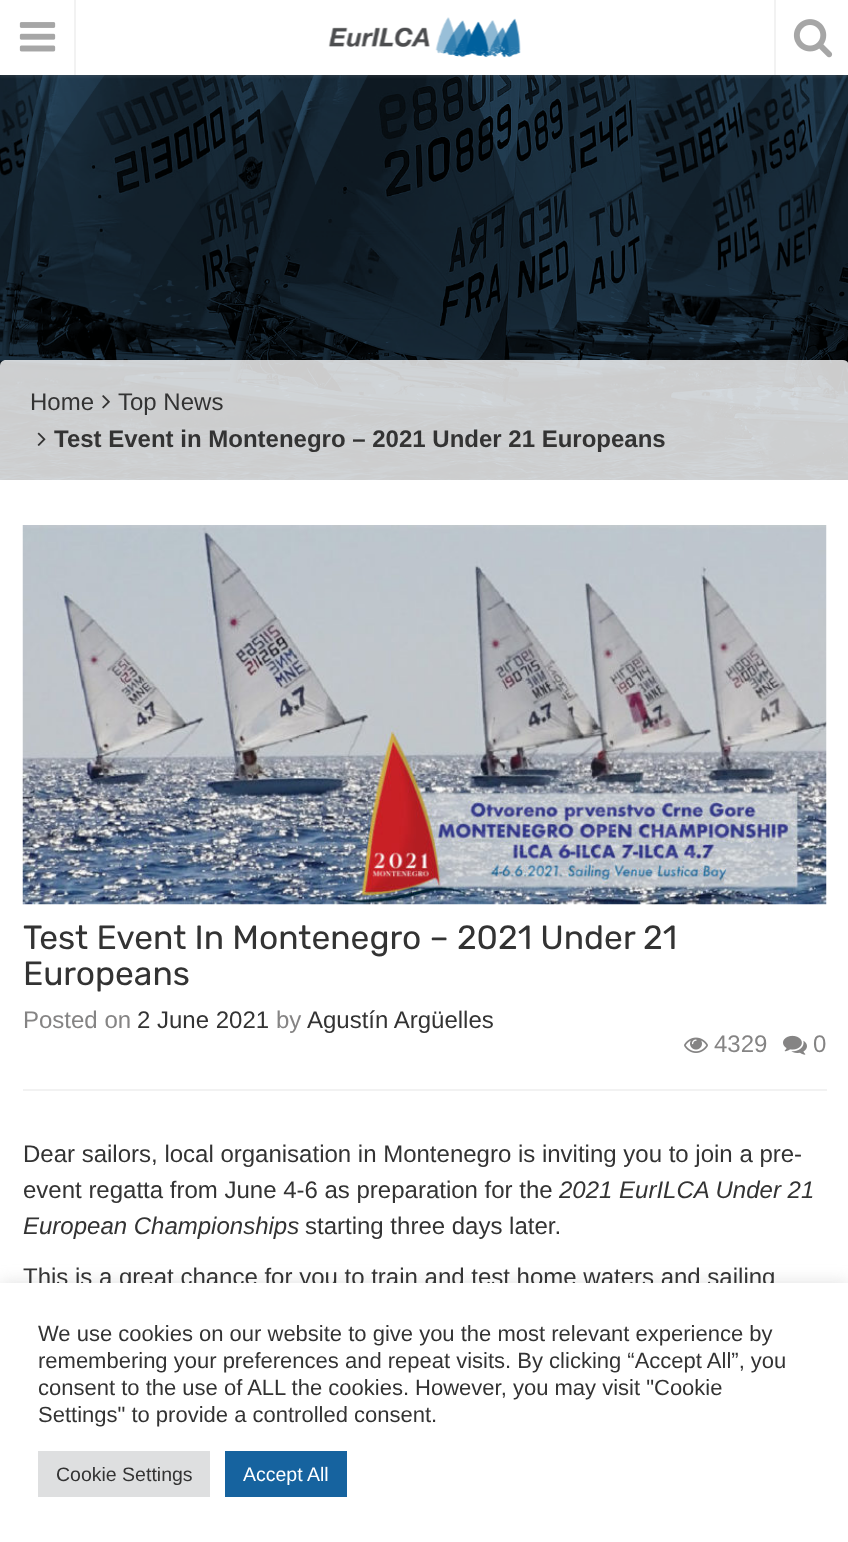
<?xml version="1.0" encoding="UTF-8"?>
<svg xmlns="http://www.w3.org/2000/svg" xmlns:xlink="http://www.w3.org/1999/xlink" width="848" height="1542">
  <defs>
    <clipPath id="clip1"><rect x="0" y="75" width="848" height="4" /></clipPath>
  </defs>
  <rect width="100%" height="100%" fill="#ffffff" />
  <image x="0" y="75" width="848" height="405" xlink:href="image4.png" />
  <g clip-path="url(#clip1)">
    <rect y="2" width="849" height="75" fill="#6c6c6c" fill-opacity="0.2" filter="blur(1.5px)" />
  </g>
  <rect x="74" width="2" height="75" fill="#f2f2f2" />
  <image x="19" y="22" width="37" height="30" xlink:href="image1.png" />
  <image x="328" y="17" width="193" height="41" xlink:href="image2.png" />
  <rect x="774" width="2" height="75" fill="#f2f2f2" />
  <image x="793" y="19" width="40" height="39" xlink:href="image3.png" />
  <path d="M 6 360 h 837 c 3.5 0 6 2.5 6 6 v 114 h -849 v -114 c 0 -3.5 2.5 -6 6 -6 z" fill="#ffffff" fill-opacity="0.8" />
  <image x="102" y="395" width="8" height="14" xlink:href="image5.png" />
  <image x="37" y="432" width="9" height="14" xlink:href="image6.png" />
  <image x="22" y="525" width="805" height="380" xlink:href="image7.png" />
  <rect x="23" y="1089" width="804" height="2" fill="#f2f2f2" />
  <image x="684" y="1037" width="24" height="16" xlink:href="image8.png" />
  <image x="783" y="1035" width="24" height="20" xlink:href="image9.png" />
  <rect y="1281" width="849" height="260" fill="#acabab" fill-opacity="0.3" filter="blur(7.5px)" />
  <text x="30" y="410" style="font-family: Liberation Sans; font-size: 24px; fill: #333333">Home</text>
  <text x="118" y="410" style="font-family: Liberation Sans; font-size: 24px; fill: #333333">Top News</text>
  <text x="54" y="447" style="font-family: Liberation Sans; font-size: 24px; font-weight: bold; fill: #333333">Test Event in Montenegro – 2021 Under 21 Europeans</text>
  <text x="23" y="949" style="font-family: Rubik; font-size: 33.6px; fill: #333333">Test Event In Montenegro – 2021 Under 21</text>
  <text x="23" y="985" style="font-family: Rubik; font-size: 33.6px; fill: #333333">Europeans</text>
  <text x="23" y="1028" style="font-family: Liberation Sans; font-size: 24px; fill: #858484">Posted on</text>
  <text x="137" y="1028" style="font-family: Liberation Sans; font-size: 24px; fill: #333333">2 June 2021</text>
  <text x="276" y="1028" style="font-family: Liberation Sans; font-size: 24px; fill: #858484">by</text>
  <text x="307" y="1028" style="font-family: Liberation Sans; font-size: 24px; fill: #333333">Agustín Argüelles</text>
  <text x="714" y="1052" style="font-family: Liberation Sans; font-size: 24px; fill: #858484">4329</text>
  <text x="813" y="1052" style="font-family: Liberation Sans; font-size: 24px; fill: #858484">0</text>
  <text x="23" y="1162" style="font-family: Liberation Sans; font-size: 24px; fill: #333333">Dear sailors, local organisation in Montenegro is inviting you to join a pre-</text>
  <text x="23" y="1198" style="font-family: Liberation Sans; font-size: 24px; fill: #333333">event regatta from June 4-6 as preparation for the</text>
  <text x="559" y="1198" style="font-family: Liberation Sans; font-size: 24px; font-style: italic; fill: #333333">2021 EurILCA Under 21</text>
  <text x="23" y="1234" style="font-family: Liberation Sans; font-size: 24px; font-style: italic; fill: #333333">European Championships</text>
  <text x="305" y="1234" style="font-family: Liberation Sans; font-size: 24px; fill: #333333">starting three days later.</text>
  <text x="23" y="1285" style="font-family: Liberation Sans; font-size: 24px; fill: #333333">This is a great chance for you to train and test home waters and sailing</text>
  <rect y="1283" width="848" height="259" fill="#ffffff" />
  <text x="38" y="1341" style="font-family: Liberation Sans; font-size: 22px; fill: #333333">We use cookies on our website to give you the most relevant experience by</text>
  <text x="38" y="1368" style="font-family: Liberation Sans; font-size: 22px; fill: #333333">remembering your preferences and repeat visits. By clicking “Accept All”, you</text>
  <text x="38" y="1395" style="font-family: Liberation Sans; font-size: 22px; fill: #333333">consent to the use of ALL the cookies. However, you may visit "Cookie</text>
  <text x="38" y="1422" style="font-family: Liberation Sans; font-size: 22px; fill: #333333">Settings" to provide a controlled consent.</text>
  <rect x="38" y="1451" width="172" height="46" fill="#dedfe0" />
  <text x="56" y="1481" style="font-family: Liberation Sans; font-size: 19.5px; fill: #333333">Cookie Settings</text>
  <rect x="225" y="1451" width="122" height="46" fill="#16639f" />
  <text x="243" y="1481" style="font-family: Liberation Sans; font-size: 19.5px; fill: #ffffff">Accept All</text>
</svg>
